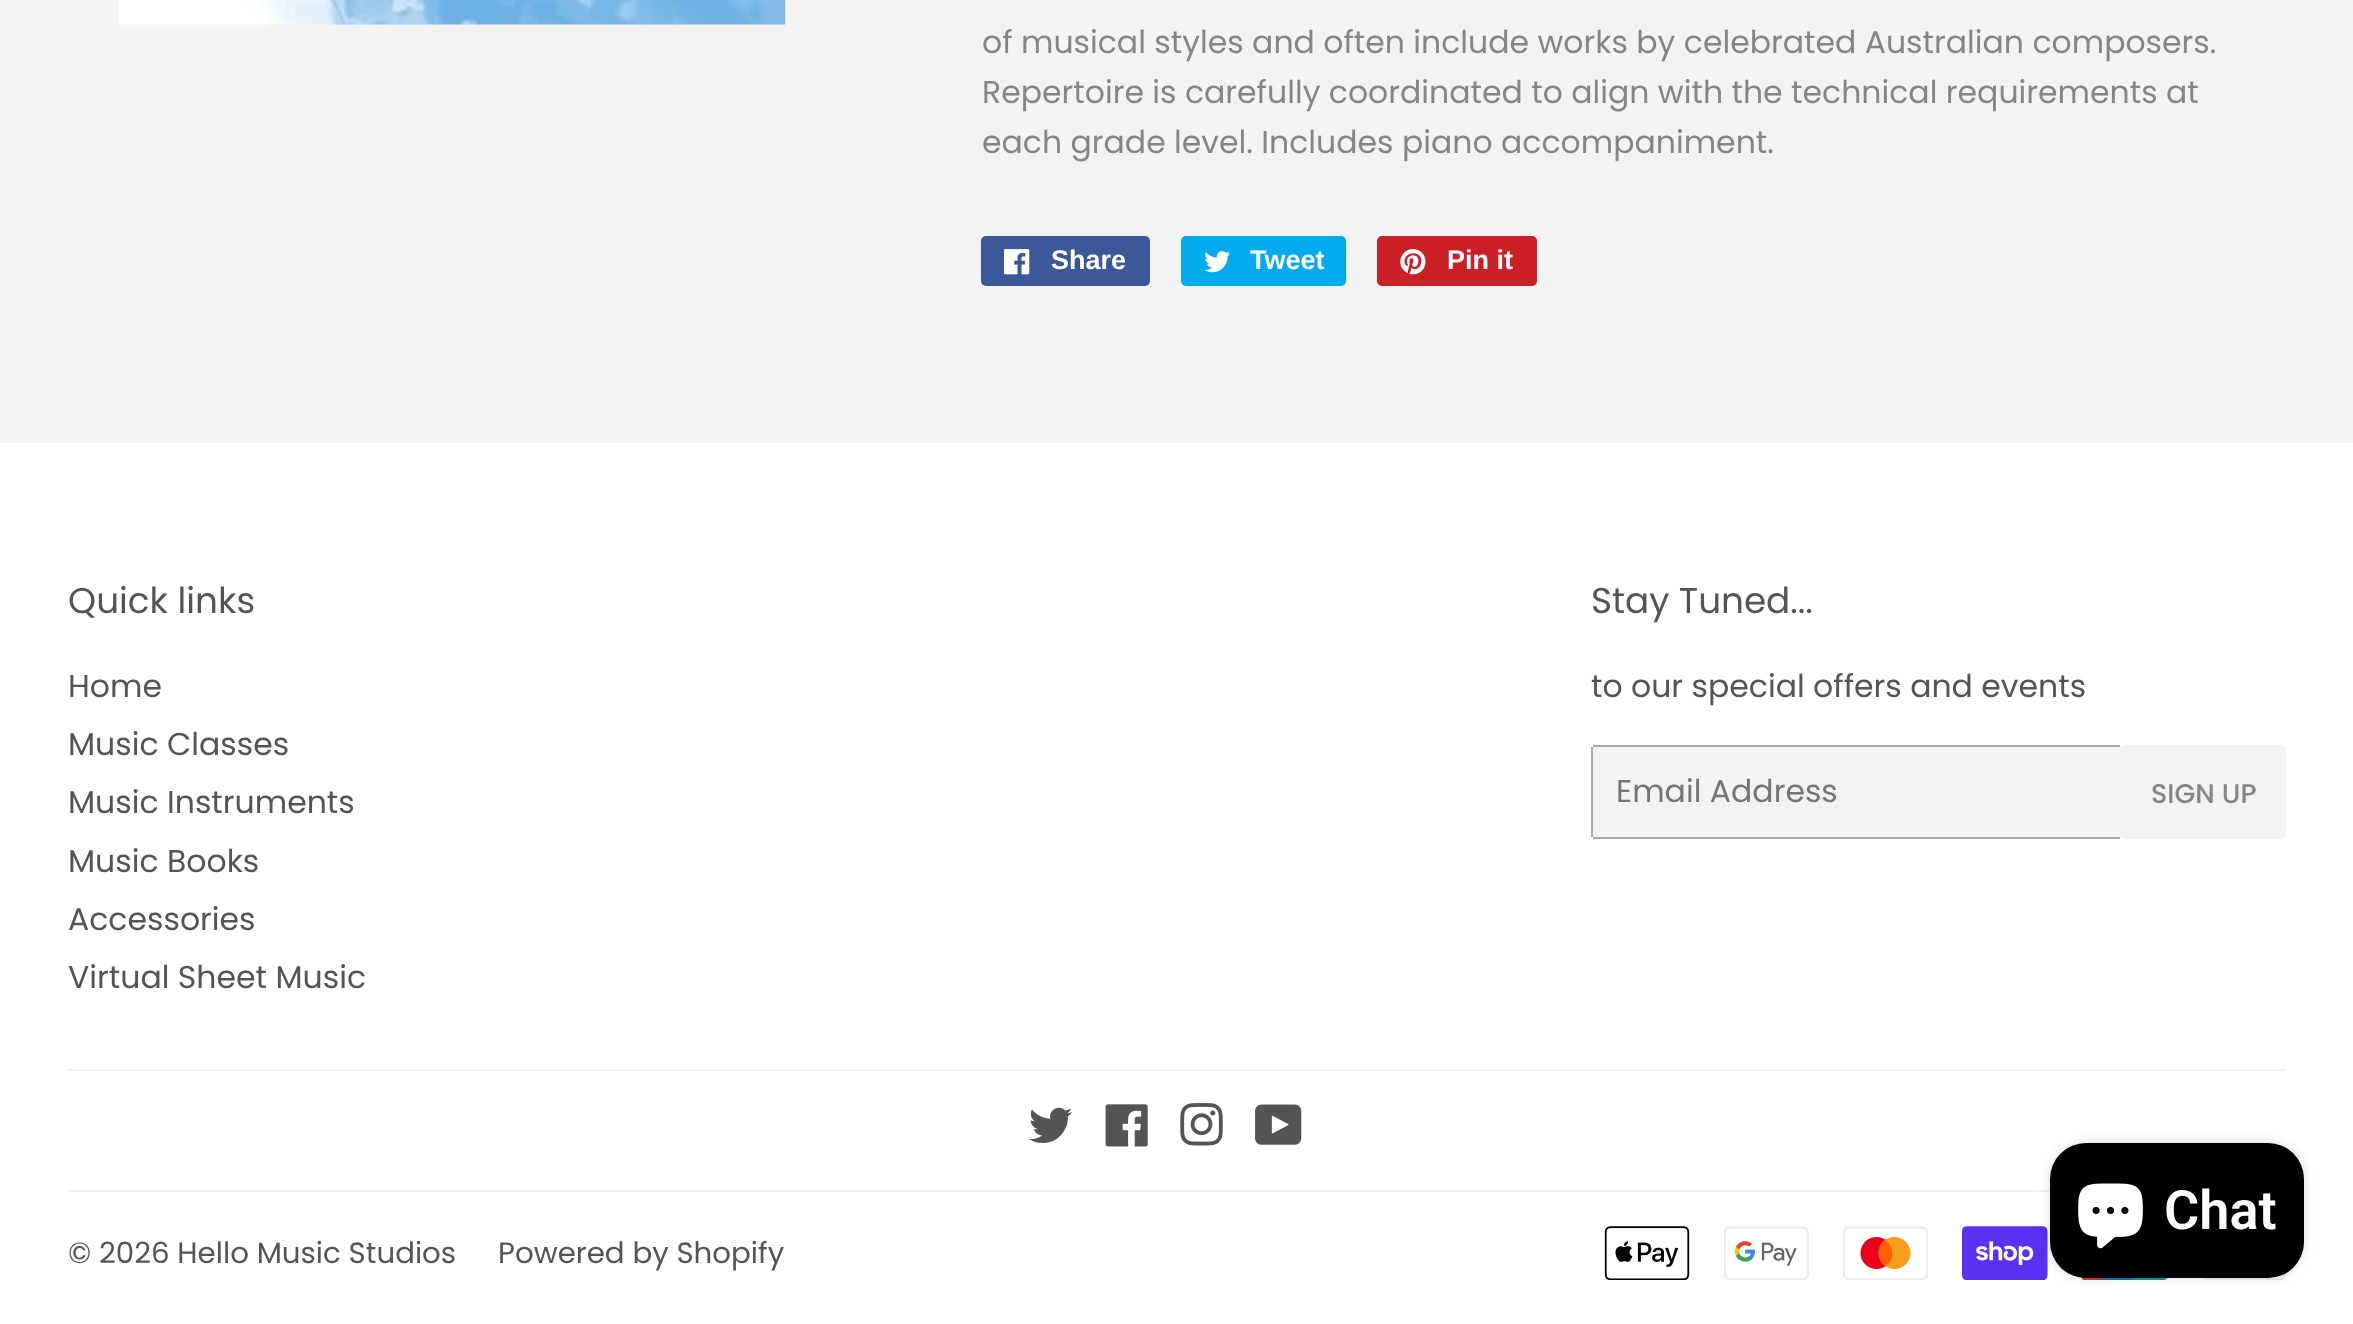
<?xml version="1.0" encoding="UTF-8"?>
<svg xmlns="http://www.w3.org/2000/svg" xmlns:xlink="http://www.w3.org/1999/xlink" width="2353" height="1324">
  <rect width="100%" height="100%" fill="#f3f3f3" />
  <image x="119" y="0" width="667" height="25" xlink:href="image1.png" />
  <rect x="981" y="236" width="169" height="50" rx="5" fill="#3b5998" />
  <image x="1004" y="249" width="26" height="26" xlink:href="image2.png" />
  <rect x="1181" y="236" width="165" height="50" rx="5" fill="#00aced" />
  <image x="1204" y="251" width="26" height="22" xlink:href="image3.png" />
  <rect x="1377" y="236" width="160" height="50" rx="5" fill="#cb2027" />
  <image x="1400" y="249" width="26" height="26" xlink:href="image4.png" />
  <rect y="443" width="2353" height="881" fill="#ffffff" />
  <rect x="1591" y="745" width="531" height="94" rx="5" fill="#f3f3f3" />
  <rect x="1593" y="745" width="527" height="2" fill="#ababab" />
  <rect x="1593" y="837" width="527" height="2" fill="#ababab" />
  <rect x="1591" y="747" width="2" height="90" fill="#ababab" />
  <path d="M 2122 745 h 159 c 3 0 5 2 5 5 v 84 c 0 3 -2 5 -5 5 h -159 z" fill="#f3f3f3" />
  <rect x="68" y="1069" width="2218" height="2" fill="#f2f2f2" />
  <image x="1029" y="1107" width="44" height="36" xlink:href="image5.png" />
  <image x="1105" y="1104" width="43" height="43" xlink:href="image6.png" />
  <image x="1180" y="1103" width="43" height="43" xlink:href="image7.png" />
  <image x="1255" y="1104" width="47" height="41" xlink:href="image8.png" />
  <rect x="68" y="1190" width="1982" height="2" fill="#f2f2f2" />
  <image x="1604" y="1226" width="86" height="54" xlink:href="image9.png" />
  <image x="1724" y="1226" width="85" height="54" xlink:href="image10.png" />
  <image x="1843" y="1226" width="85" height="54" xlink:href="image11.png" />
  <image x="1962" y="1226" width="86" height="54" xlink:href="image12.png" />
  <image x="2081" y="1277" width="86" height="3" xlink:href="image13.png" />
  <image x="2203" y="1273" width="83" height="7" xlink:href="image14.png" />
  <rect x="2050" y="1143" width="254" height="135" rx="36" fill="#000000" fill-opacity="0.15" filter="blur(5.5px)" />
  <rect x="2050" y="1143" width="254" height="135" rx="36" fill="#000000" />
  <image x="2078" y="1183" width="65" height="66" xlink:href="image15.png" />
  <text x="982" y="53" style="font-family: Poppins; font-size: 31.5px; fill: #858585">of musical styles and often include works by celebrated Australian composers.</text>
  <text x="982" y="103" style="font-family: Poppins; font-size: 31.5px; fill: #858585">Repertoire is carefully coordinated to align with the technical requirements at</text>
  <text x="982" y="153" style="font-family: Poppins; font-size: 31.5px; fill: #858585">each grade level. Includes piano accompaniment.</text>
  <text x="1051" y="269" style="font-family: Liberation Sans; font-size: 27px; font-weight: bold; fill: #ffffff">Share</text>
  <text x="1250" y="269" style="font-family: Liberation Sans; font-size: 27px; font-weight: bold; fill: #ffffff">Tweet</text>
  <text x="1447" y="269" style="font-family: Liberation Sans; font-size: 27px; font-weight: bold; fill: #ffffff">Pin it</text>
  <text x="68" y="613" style="font-family: Poppins; font-size: 35.75px; fill: #545454">Quick links</text>
  <text x="68" y="697" style="font-family: Poppins; font-size: 31.5px; fill: #545454">Home</text>
  <text x="68" y="755" style="font-family: Poppins; font-size: 31.5px; fill: #545454">Music Classes</text>
  <text x="68" y="813" style="font-family: Poppins; font-size: 31.5px; fill: #545454">Music Instruments</text>
  <text x="68" y="872" style="font-family: Poppins; font-size: 31.5px; fill: #545454">Music Books</text>
  <text x="68" y="930" style="font-family: Poppins; font-size: 31.5px; fill: #545454">Accessories</text>
  <text x="68" y="988" style="font-family: Poppins; font-size: 31.5px; fill: #545454">Virtual Sheet Music</text>
  <text x="1591" y="613" style="font-family: Poppins; font-size: 35.75px; fill: #545454">Stay Tuned...</text>
  <text x="1591" y="697" style="font-family: Poppins; font-size: 31.5px; fill: #545454">to our special offers and events</text>
  <text x="1616" y="802" style="font-family: Poppins; font-size: 31.5px; fill: #757575">Email Address</text>
  <text x="2151" y="803" style="font-family: Poppins; font-size: 27px; font-weight: 500; fill: #858585">SIGN UP</text>
  <text x="68" y="1263" style="font-family: Poppins; font-size: 29.25px; fill: #545454">© 2026 Hello Music Studios</text>
  <text x="498" y="1263" style="font-family: Poppins; font-size: 29.25px; fill: #545454">Powered by Shopify</text>
  <text x="2164" y="1229" style="font-family: Roboto; font-size: 54px; font-weight: 600; fill: #ffffff">Chat</text>
</svg>
